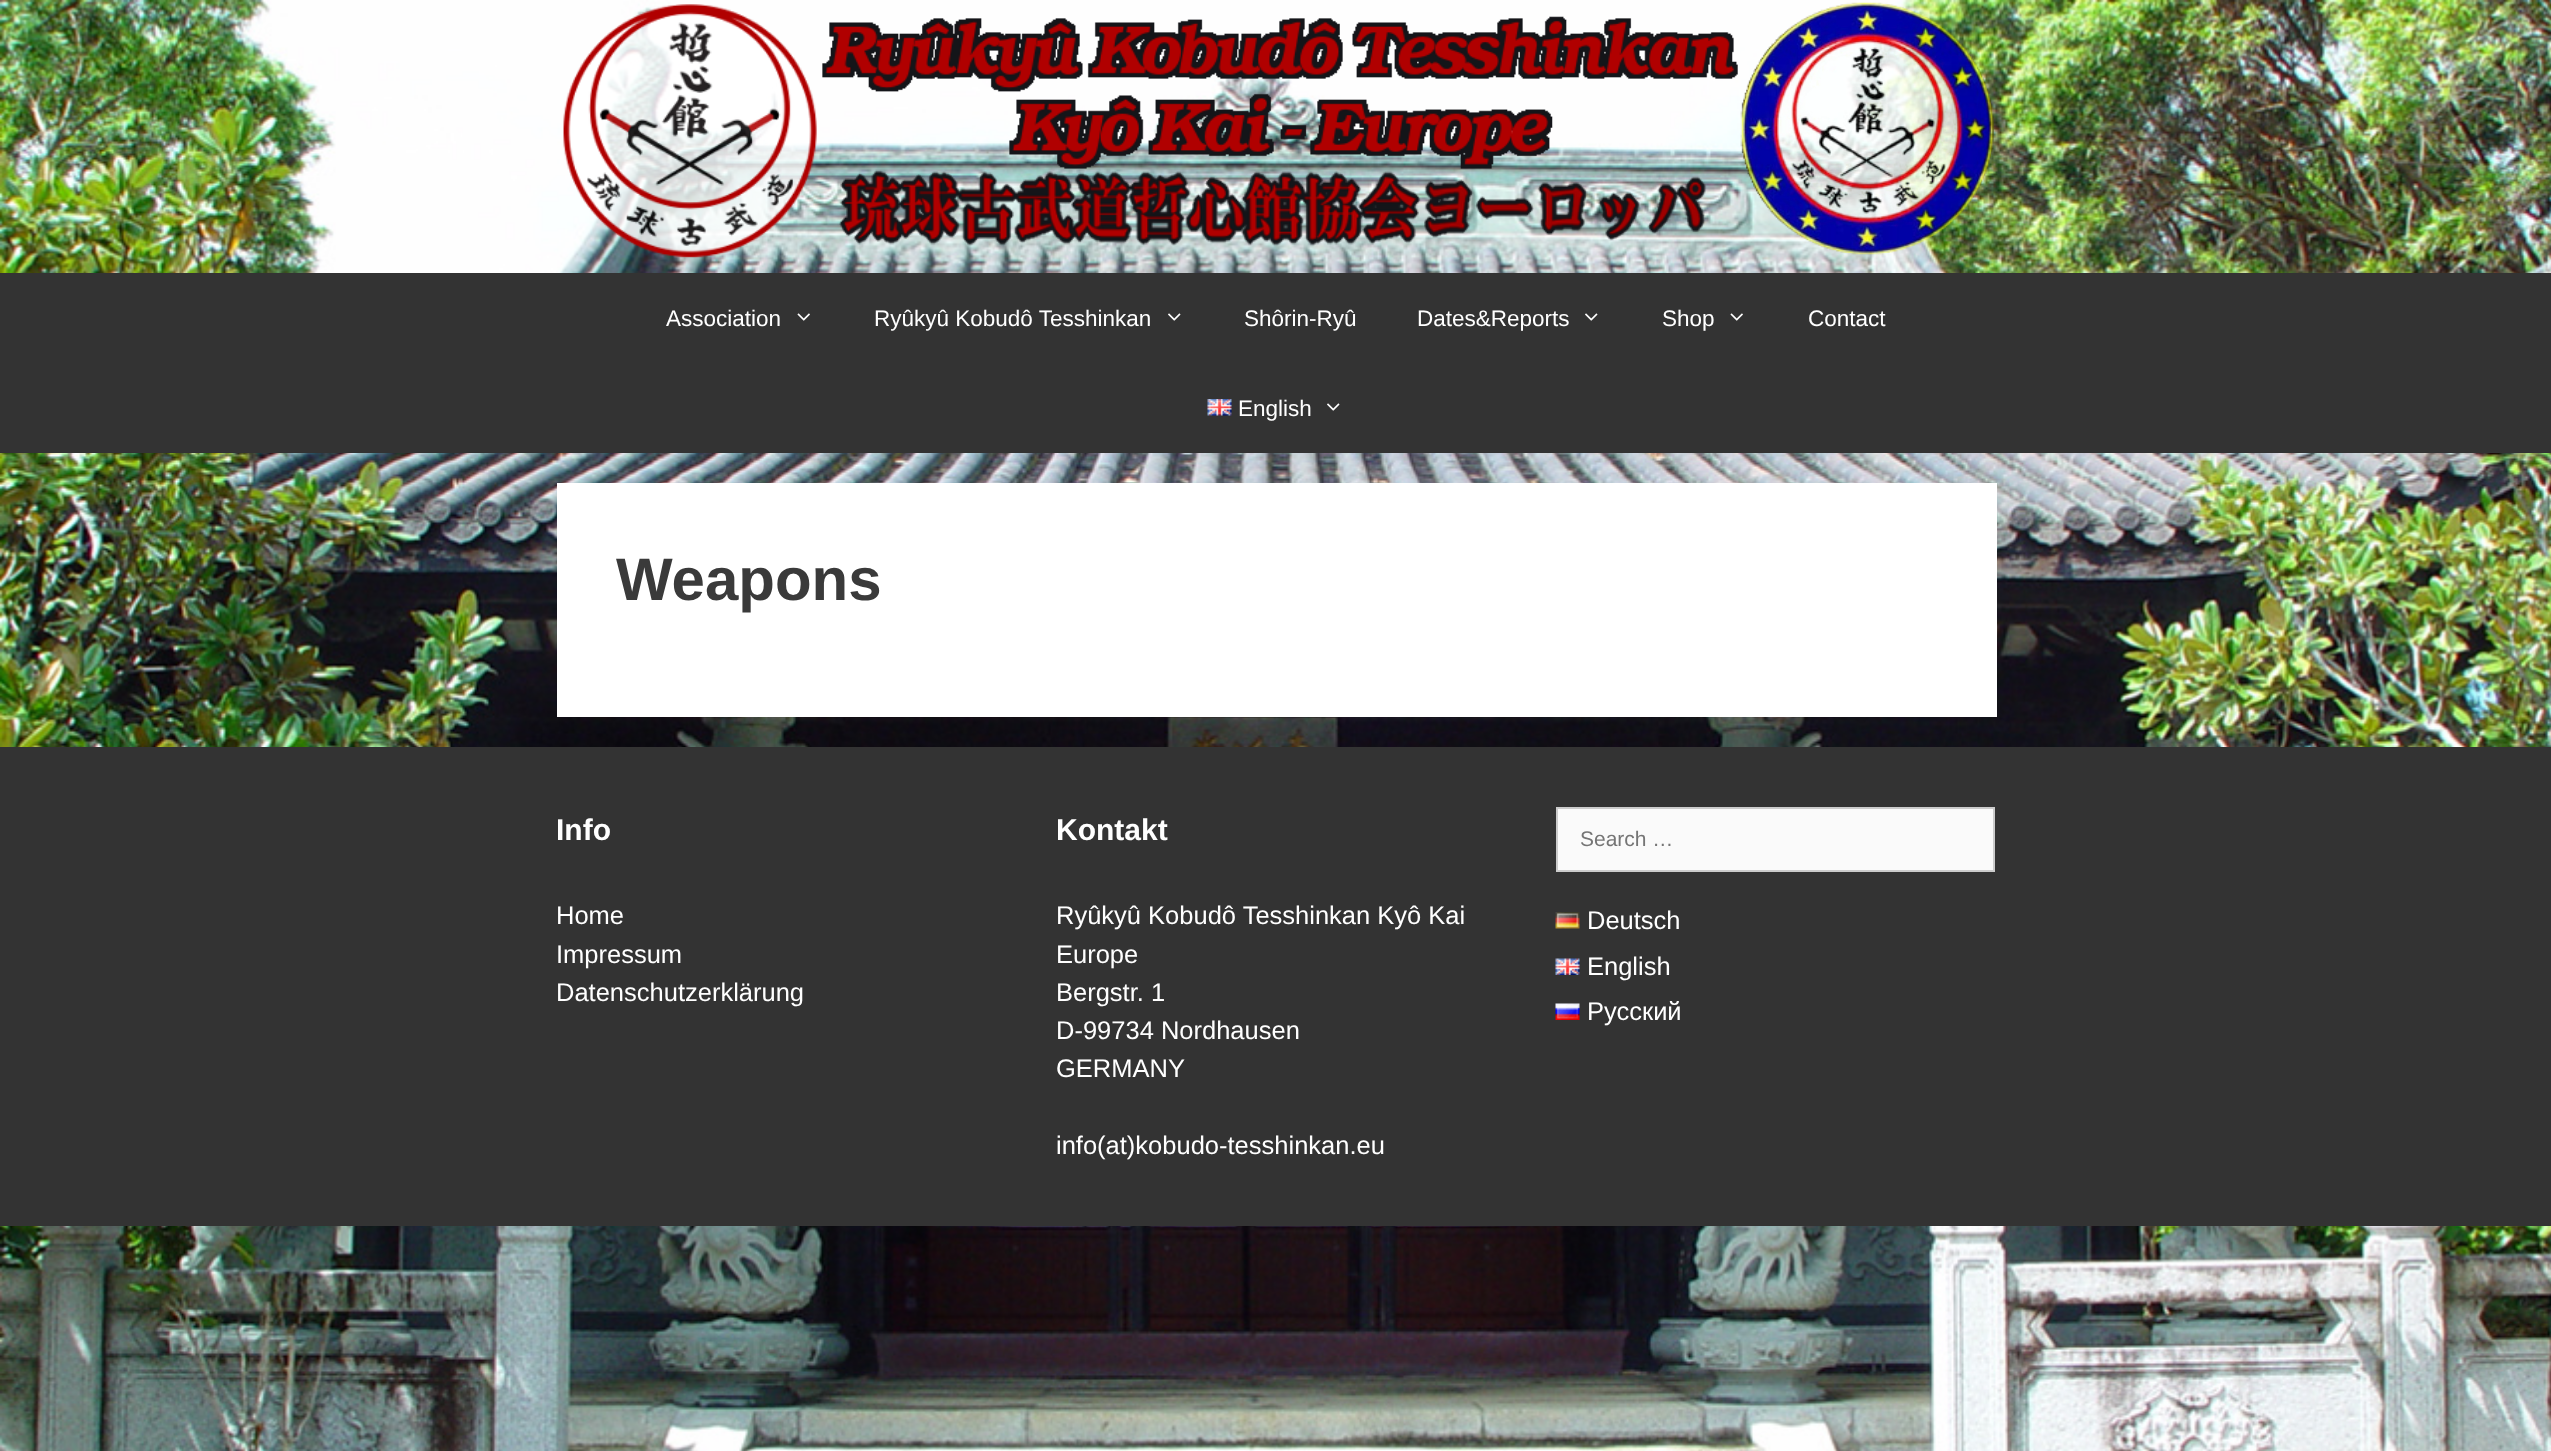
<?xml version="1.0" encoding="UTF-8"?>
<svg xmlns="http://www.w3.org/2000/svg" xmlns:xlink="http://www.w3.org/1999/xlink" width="2551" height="1451">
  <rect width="100%" height="100%" fill="#ffffff" />
  <image x="0" y="0" width="2551" height="1451" xlink:href="image1.png" />
  <image x="563" y="2" width="1431" height="256" xlink:href="image2.png" />
  <rect y="273" width="2551" height="180" fill="#333333" />
  <image x="797" y="313" width="13" height="8" xlink:href="image3.png" />
  <image x="1168" y="313" width="13" height="8" xlink:href="image4.png" />
  <image x="1585" y="313" width="13" height="8" xlink:href="image4.png" />
  <image x="1730" y="313" width="13" height="8" xlink:href="image3.png" />
  <image x="1207" y="399" width="25" height="17" xlink:href="image5.png" />
  <image x="1327" y="403" width="13" height="8" xlink:href="image4.png" />
  <rect x="557" y="483" width="1440" height="234" fill="#ffffff" />
  <rect y="747" width="2551" height="479" fill="#333333" />
  <rect x="1557" y="808" width="437" height="63" fill="#fafafa" stroke="#cccccc" stroke-width="2" />
  <image x="1555" y="912" width="25" height="17" xlink:href="image6.png" />
  <image x="1555" y="958" width="25" height="17" xlink:href="image7.png" />
  <image x="1555" y="1003" width="25" height="17" xlink:href="image8.png" />
  <text x="666" y="326" style="font-family: Liberation Sans; font-size: 22.5px; fill: #ffffff">Association</text>
  <text x="874" y="326" style="font-family: Liberation Sans; font-size: 22.5px; fill: #ffffff">Ryûkyû Kobudô Tesshinkan</text>
  <text x="1244" y="326" style="font-family: Liberation Sans; font-size: 22.5px; fill: #ffffff">Shôrin-Ryû</text>
  <text x="1417" y="326" style="font-family: Liberation Sans; font-size: 22.5px; fill: #ffffff">Dates&amp;Reports</text>
  <text x="1662" y="326" style="font-family: Liberation Sans; font-size: 22.5px; fill: #ffffff">Shop</text>
  <text x="1808" y="326" style="font-family: Liberation Sans; font-size: 22.5px; fill: #ffffff">Contact</text>
  <text x="1238" y="416" style="font-family: Liberation Sans; font-size: 22.5px; fill: #ffffff">English</text>
  <text x="616" y="600" style="font-family: Liberation Sans; font-size: 60px; font-weight: bold; fill: #3a3a3a">Weapons</text>
  <text x="556" y="840" style="font-family: Liberation Sans; font-size: 30px; font-weight: bold; fill: #ffffff">Info</text>
  <text x="556" y="924" style="font-family: Liberation Sans; font-size: 25.5px; fill: #ffffff">Home</text>
  <text x="556" y="963" style="font-family: Liberation Sans; font-size: 25.5px; fill: #ffffff">Impressum</text>
  <text x="556" y="1001" style="font-family: Liberation Sans; font-size: 25.5px; fill: #ffffff">Datenschutzerklärung</text>
  <text x="1056" y="840" style="font-family: Liberation Sans; font-size: 30px; font-weight: bold; fill: #ffffff">Kontakt</text>
  <text x="1056" y="924" style="font-family: Liberation Sans; font-size: 25.5px; fill: #ffffff">Ryûkyû Kobudô Tesshinkan Kyô Kai</text>
  <text x="1056" y="963" style="font-family: Liberation Sans; font-size: 25.5px; fill: #ffffff">Europe</text>
  <text x="1056" y="1001" style="font-family: Liberation Sans; font-size: 25.5px; fill: #ffffff">Bergstr. 1</text>
  <text x="1056" y="1039" style="font-family: Liberation Sans; font-size: 25.5px; fill: #ffffff">D-99734 Nordhausen</text>
  <text x="1056" y="1077" style="font-family: Liberation Sans; font-size: 25.5px; fill: #ffffff">GERMANY</text>
  <text x="1056" y="1154" style="font-family: Liberation Sans; font-size: 25.5px; fill: #ffffff">info(at)kobudo-tesshinkan.eu</text>
  <text x="1580" y="846" style="font-family: Liberation Sans; font-size: 21px; fill: #757575">Search …</text>
  <text x="1587" y="929" style="font-family: Liberation Sans; font-size: 25.5px; fill: #ffffff">Deutsch</text>
  <text x="1587" y="975" style="font-family: Liberation Sans; font-size: 25.5px; fill: #ffffff">English</text>
  <text x="1587" y="1020" style="font-family: Liberation Sans; font-size: 25.5px; fill: #ffffff">Русский</text>
</svg>
